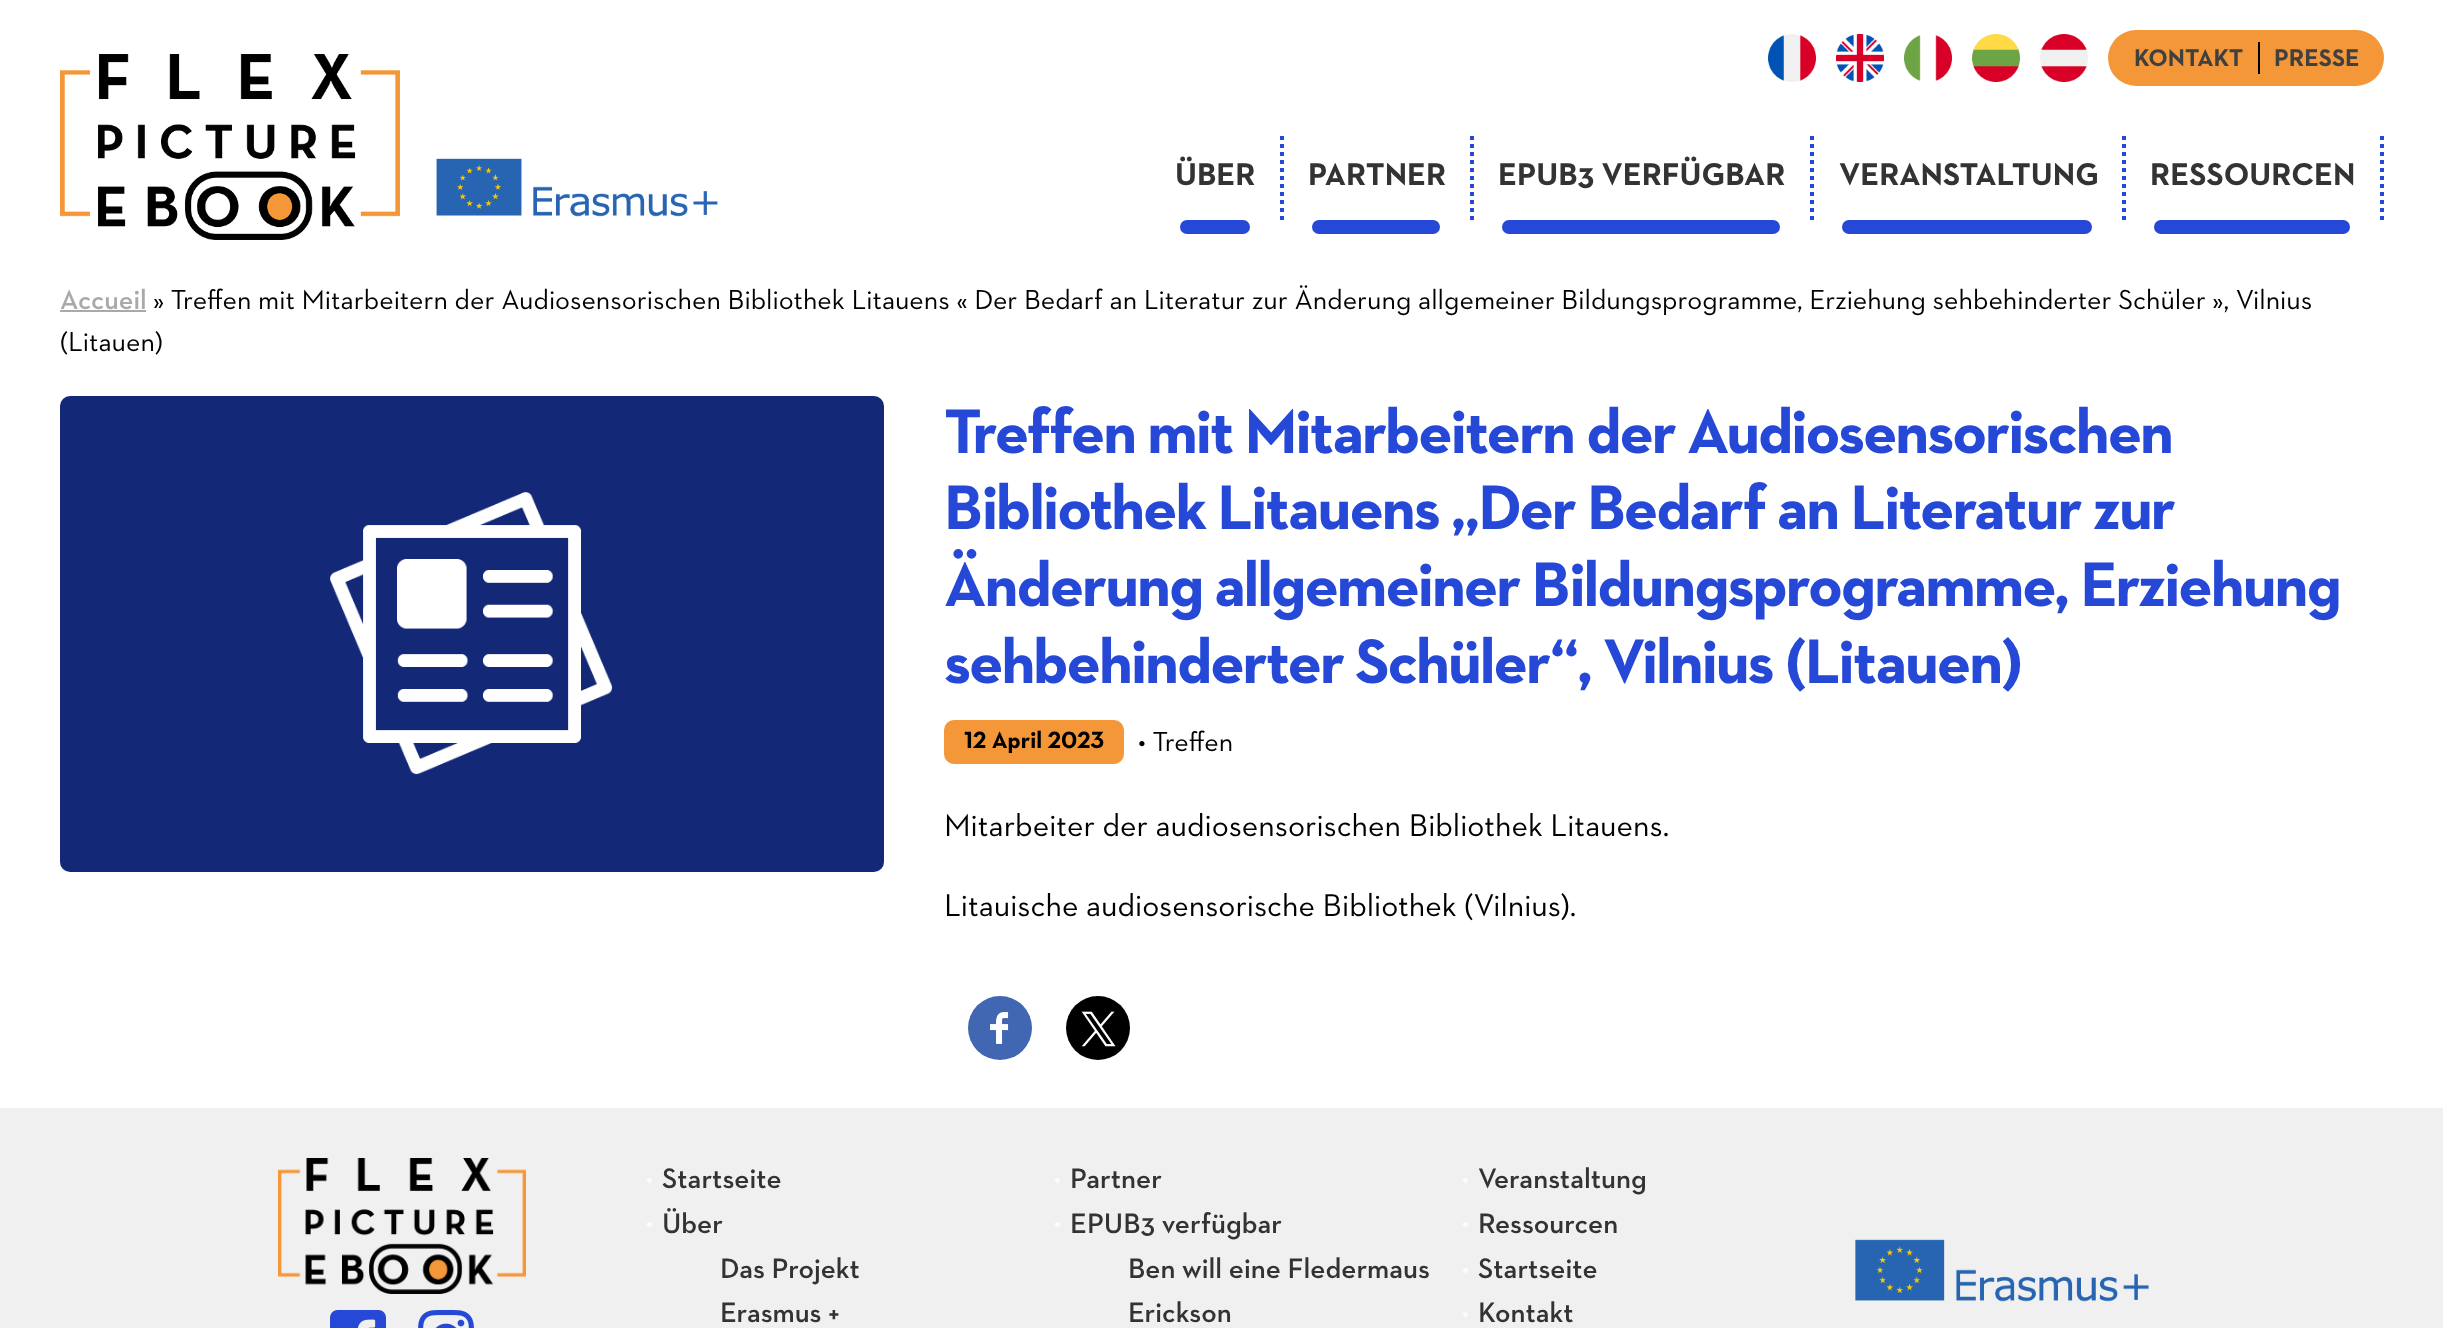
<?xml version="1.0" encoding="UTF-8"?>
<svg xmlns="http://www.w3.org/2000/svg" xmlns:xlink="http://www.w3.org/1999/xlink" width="2443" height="1328">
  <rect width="100%" height="100%" fill="#ffffff" />
  <image x="60" y="54" width="340" height="186" xlink:href="image1.png" />
  <image x="436" y="158" width="282" height="59" xlink:href="image2.png" />
  <image x="1768" y="34" width="48" height="48" xlink:href="image3.png" />
  <image x="1836" y="34" width="48" height="48" xlink:href="image4.png" />
  <image x="1904" y="35" width="48" height="46" xlink:href="image5.png" />
  <image x="1972" y="34" width="48" height="48" xlink:href="image6.png" />
  <image x="2040" y="34" width="48" height="48" xlink:href="image7.png" />
  <rect x="2108" y="30" width="276" height="56" rx="28" fill="#f49739" />
  <rect x="2258" y="42" width="2" height="32" fill="#000000" />
  <path d="M 1282 136 v 86" fill="none" stroke="#2548d7" stroke-width="4" stroke-dasharray="4 4" />
  <rect x="1180" y="220" width="70" height="14" rx="7" fill="#2548d7" />
  <path d="M 1472 136 v 86" fill="none" stroke="#2548d7" stroke-width="4" stroke-dasharray="4 4" />
  <rect x="1312" y="220" width="128" height="14" rx="7" fill="#2548d7" />
  <path d="M 1812 136 v 86" fill="none" stroke="#2548d7" stroke-width="4" stroke-dasharray="4 4" />
  <rect x="1502" y="220" width="278" height="14" rx="7" fill="#2548d7" />
  <path d="M 2124 136 v 86" fill="none" stroke="#2548d7" stroke-width="4" stroke-dasharray="4 4" />
  <rect x="1842" y="220" width="250" height="14" rx="7" fill="#2548d7" />
  <path d="M 2382 136 v 86" fill="none" stroke="#2548d7" stroke-width="4" stroke-dasharray="4 4" />
  <rect x="2154" y="220" width="196" height="14" rx="7" fill="#2548d7" />
  <rect x="60" y="310" width="86" height="2" fill="#a9a9a9" />
  <image x="60" y="396" width="824" height="476" xlink:href="image8.png" />
  <rect x="944" y="720" width="180" height="44" rx="10" fill="#f49739" />
  <circle cx="1000" cy="1028" r="32" fill="#4267b2" />
  <image x="990" y="1012" width="19" height="32" xlink:href="image9.png" />
  <circle cx="1098" cy="1028" r="32" fill="#000000" />
  <image x="1081" y="1011" width="35" height="36" xlink:href="image10.png" />
  <rect y="1108" width="2443" height="220" fill="#f0f0f0" />
  <image x="278" y="1158" width="248" height="136" xlink:href="image11.png" />
  <image x="330" y="1310" width="56" height="18" xlink:href="image12.png" />
  <image x="418" y="1310" width="56" height="18" xlink:href="image13.png" />
  <image x="646" y="1178" width="6" height="6" xlink:href="image14.png" />
  <image x="1054" y="1178" width="6" height="6" xlink:href="image14.png" />
  <image x="1462" y="1178" width="6" height="6" xlink:href="image14.png" />
  <image x="646" y="1222" width="6" height="6" xlink:href="image14.png" />
  <image x="1054" y="1222" width="6" height="6" xlink:href="image14.png" />
  <image x="1462" y="1222" width="6" height="6" xlink:href="image14.png" />
  <image x="1462" y="1268" width="6" height="6" xlink:href="image14.png" />
  <image x="1462" y="1312" width="6" height="6" xlink:href="image14.png" />
  <image x="1855" y="1239" width="294" height="63" xlink:href="image15.png" />
  <text x="2134" y="66" style="font-family: 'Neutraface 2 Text'; font-size: 24.5px; font-weight: bold; fill: #404040">KONTAKT</text>
  <text x="2274" y="66" style="font-family: 'Neutraface 2 Text'; font-size: 24.5px; font-weight: bold; fill: #404040">PRESSE</text>
  <text x="1175" y="185" style="font-family: 'Neutraface 2 Text'; font-size: 32px; font-weight: bold; fill: #333333">ÜBER</text>
  <text x="1308" y="185" style="font-family: 'Neutraface 2 Text'; font-size: 32px; font-weight: bold; fill: #333333">PARTNER</text>
  <text x="1498" y="185" style="font-family: 'Neutraface 2 Text'; font-size: 32px; font-weight: bold; fill: #333333">EPUB3 VERFÜGBAR</text>
  <text x="1839" y="185" style="font-family: 'Neutraface 2 Text'; font-size: 32px; font-weight: bold; fill: #333333">VERANSTALTUNG</text>
  <text x="2150" y="185" style="font-family: 'Neutraface 2 Text'; font-size: 32px; font-weight: bold; fill: #333333">RESSOURCEN</text>
  <text x="60" y="309" style="font-family: 'Neutraface 2 Text'; font-size: 28px; font-weight: 600; fill: #a9a9a9">Accueil</text>
  <text x="153" y="309" style="font-family: 'Neutraface 2 Text'; font-size: 28px; fill: #000000">» Treffen mit Mitarbeitern der Audiosensorischen Bibliothek Litauens « Der Bedarf an Literatur zur Änderung allgemeiner Bildungsprogramme, Erziehung sehbehinderter Schüler », Vilnius</text>
  <text x="60" y="351" style="font-family: 'Neutraface 2 Text'; font-size: 28px; fill: #000000">(Litauen)</text>
  <text x="944" y="453" style="font-family: 'Neutraface 2 Text'; font-size: 64px; font-weight: bold; letter-spacing: -2px; fill: #2548d7">Treffen mit Mitarbeitern der Audiosensorischen</text>
  <text x="944" y="529" style="font-family: 'Neutraface 2 Text'; font-size: 64px; font-weight: bold; letter-spacing: -2px; fill: #2548d7">Bibliothek Litauens „Der Bedarf an Literatur zur</text>
  <text x="944" y="606" style="font-family: 'Neutraface 2 Text'; font-size: 64px; font-weight: bold; letter-spacing: -2px; fill: #2548d7">Änderung allgemeiner Bildungsprogramme, Erziehung</text>
  <text x="944" y="683" style="font-family: 'Neutraface 2 Text'; font-size: 64px; font-weight: bold; letter-spacing: -2px; fill: #2548d7">sehbehinderter Schüler“, Vilnius (Litauen)</text>
  <text x="964" y="748" style="font-family: 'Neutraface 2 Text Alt'; font-size: 24px; font-weight: bold; fill: #000000">12 April 2023</text>
  <text x="1138" y="751" style="font-family: 'Neutraface 2 Text'; font-size: 28px; fill: #000000">• Treffen</text>
  <text x="944" y="836" style="font-family: 'Neutraface 2 Text'; font-size: 32px; fill: #000000">Mitarbeiter der audiosensorischen Bibliothek Litauens.</text>
  <text x="944" y="916" style="font-family: 'Neutraface 2 Text'; font-size: 32px; fill: #000000">Litauische audiosensorische Bibliothek (Vilnius).</text>
  <text x="662" y="1188" style="font-family: 'Neutraface 2 Text'; font-size: 28.75px; font-weight: 600; fill: #333333">Startseite</text>
  <text x="1070" y="1188" style="font-family: 'Neutraface 2 Text'; font-size: 28.75px; font-weight: 600; fill: #333333">Partner</text>
  <text x="1478" y="1188" style="font-family: 'Neutraface 2 Text'; font-size: 28.75px; font-weight: 600; fill: #333333">Veranstaltung</text>
  <text x="662" y="1233" style="font-family: 'Neutraface 2 Text'; font-size: 28.75px; font-weight: 600; fill: #333333">Über</text>
  <text x="720" y="1278" style="font-family: 'Neutraface 2 Text'; font-size: 28.75px; font-weight: 600; fill: #333333">Das Projekt</text>
  <text x="720" y="1322" style="font-family: 'Neutraface 2 Text'; font-size: 28.75px; font-weight: 600; fill: #333333">Erasmus +</text>
  <text x="1070" y="1233" style="font-family: 'Neutraface 2 Text'; font-size: 28.75px; font-weight: 600; fill: #333333">EPUB3 verfügbar</text>
  <text x="1128" y="1278" style="font-family: 'Neutraface 2 Text'; font-size: 28.75px; font-weight: 600; fill: #333333">Ben will eine Fledermaus</text>
  <text x="1128" y="1322" style="font-family: 'Neutraface 2 Text'; font-size: 28.75px; font-weight: 600; fill: #333333">Erickson</text>
  <text x="1478" y="1233" style="font-family: 'Neutraface 2 Text'; font-size: 28.75px; font-weight: 600; fill: #333333">Ressourcen</text>
  <text x="1478" y="1278" style="font-family: 'Neutraface 2 Text'; font-size: 28.75px; font-weight: 600; fill: #333333">Startseite</text>
  <text x="1478" y="1322" style="font-family: 'Neutraface 2 Text'; font-size: 28.75px; font-weight: 600; fill: #333333">Kontakt</text>
</svg>
